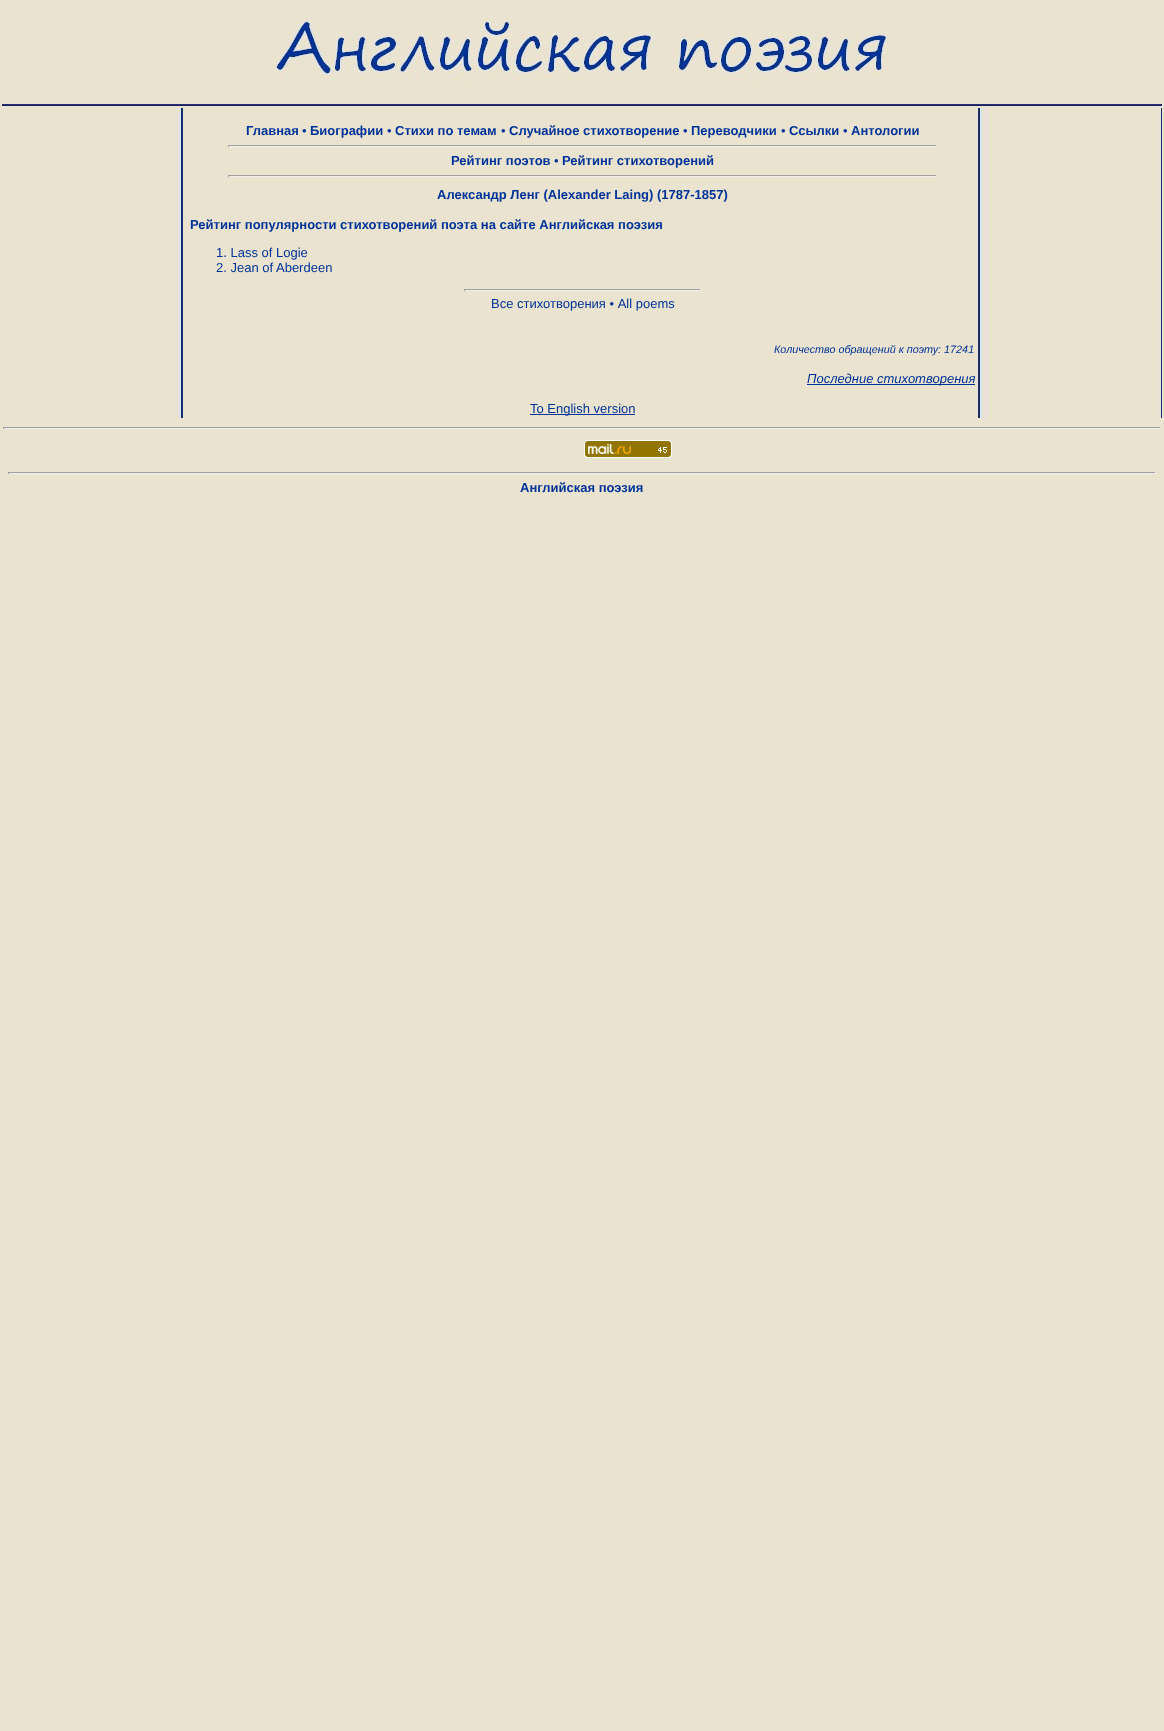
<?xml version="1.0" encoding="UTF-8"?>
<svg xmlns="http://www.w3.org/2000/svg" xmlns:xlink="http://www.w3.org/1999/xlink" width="1164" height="1731">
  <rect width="100%" height="100%" fill="#eae3d0" />
  <image x="273" y="20" width="618" height="64" xlink:href="image1.png" />
  <image x="2" y="104" width="1160" height="2" xlink:href="image2.png" />
  <image x="178" y="108" width="5" height="310" xlink:href="image3.png" />
  <rect x="228" y="145" width="709" height="1" fill="#9f9f9f" />
  <rect x="936" y="145" width="1" height="2" fill="#eeeeee" />
  <rect x="228" y="146" width="709" height="1" fill="#eeeeee" />
  <rect x="228" y="145" width="1" height="2" fill="#9f9f9f" />
  <rect x="228" y="175" width="709" height="1" fill="#9f9f9f" />
  <rect x="936" y="175" width="1" height="2" fill="#eeeeee" />
  <rect x="228" y="176" width="709" height="1" fill="#eeeeee" />
  <rect x="228" y="175" width="1" height="2" fill="#9f9f9f" />
  <image x="978" y="108" width="184" height="310" xlink:href="image4.png" />
  <rect x="464" y="289" width="237" height="1" fill="#9f9f9f" />
  <rect x="700" y="289" width="1" height="2" fill="#eeeeee" />
  <rect x="464" y="290" width="237" height="1" fill="#eeeeee" />
  <rect x="464" y="289" width="1" height="2" fill="#9f9f9f" />
  <rect x="807" y="384" width="168" height="1" fill="#003399" />
  <rect x="530" y="414" width="105" height="1" fill="#003399" />
  <rect x="3" y="427" width="1158" height="1" fill="#9f9f9f" />
  <rect x="1160" y="427" width="1" height="2" fill="#eeeeee" />
  <rect x="3" y="428" width="1158" height="1" fill="#eeeeee" />
  <rect x="3" y="427" width="1" height="2" fill="#9f9f9f" />
  <image x="584" y="440" width="88" height="18" xlink:href="image5.png" />
  <rect x="8" y="472" width="1148" height="1" fill="#9f9f9f" />
  <rect x="1155" y="472" width="1" height="2" fill="#eeeeee" />
  <rect x="8" y="473" width="1148" height="1" fill="#eeeeee" />
  <rect x="8" y="472" width="1" height="2" fill="#9f9f9f" />
  <text x="246" y="135" style="font-family: Liberation Sans; font-size: 13px; font-weight: bold; fill: #003399">Главная</text>
  <text x="302" y="135" style="font-family: Liberation Sans; font-size: 13px; fill: #003399">•</text>
  <text x="310" y="135" style="font-family: Liberation Sans; font-size: 13px; font-weight: bold; fill: #003399">Биографии</text>
  <text x="387" y="135" style="font-family: Liberation Sans; font-size: 13px; fill: #003399">•</text>
  <text x="395" y="135" style="font-family: Liberation Sans; font-size: 13px; font-weight: bold; fill: #003399">Стихи по темам</text>
  <text x="501" y="135" style="font-family: Liberation Sans; font-size: 13px; fill: #003399">•</text>
  <text x="509" y="135" style="font-family: Liberation Sans; font-size: 13px; font-weight: bold; fill: #003399">Случайное стихотворение</text>
  <text x="683" y="135" style="font-family: Liberation Sans; font-size: 13px; fill: #003399">•</text>
  <text x="691" y="135" style="font-family: Liberation Sans; font-size: 13px; font-weight: bold; fill: #003399">Переводчики</text>
  <text x="781" y="135" style="font-family: Liberation Sans; font-size: 13px; fill: #003399">•</text>
  <text x="789" y="135" style="font-family: Liberation Sans; font-size: 13px; font-weight: bold; fill: #003399">Ссылки</text>
  <text x="843" y="135" style="font-family: Liberation Sans; font-size: 13px; fill: #003399">•</text>
  <text x="851" y="135" style="font-family: Liberation Sans; font-size: 13px; font-weight: bold; fill: #003399">Антологии</text>
  <text x="451" y="165" style="font-family: Liberation Sans; font-size: 13px; font-weight: bold; fill: #003399">Рейтинг поэтов</text>
  <text x="554" y="165" style="font-family: Liberation Sans; font-size: 13px; fill: #003399">•</text>
  <text x="562" y="165" style="font-family: Liberation Sans; font-size: 13px; font-weight: bold; fill: #003399">Рейтинг стихотворений</text>
  <text x="437" y="199" style="font-family: Liberation Sans; font-size: 13px; font-weight: bold; fill: #003399">Александр Ленг (Alexander Laing) (1787-1857)</text>
  <text x="190" y="229" style="font-family: Liberation Sans; font-size: 13px; font-weight: bold; fill: #003399">Рейтинг популярности стихотворений поэта на сайте Английская поэзия</text>
  <text x="216" y="257" style="font-family: Liberation Sans; font-size: 13px; fill: #003399">1. Lass of Logie</text>
  <text x="216" y="272" style="font-family: Liberation Sans; font-size: 13px; fill: #003399">2. Jean of Aberdeen</text>
  <text x="491" y="308" style="font-family: Liberation Sans; font-size: 13px; fill: #003399">Все стихотворения • All poems</text>
  <text x="774" y="353" style="font-family: Liberation Sans; font-size: 10.8px; font-style: italic; fill: #003399">Количество обращений к поэту: 17241</text>
  <text x="807" y="383" style="font-family: Liberation Sans; font-size: 13px; font-style: italic; fill: #003399">Последние стихотворения</text>
  <text x="530" y="413" style="font-family: Liberation Sans; font-size: 13px; fill: #003399">To English version</text>
  <text x="520" y="492" style="font-family: Liberation Sans; font-size: 13px; font-weight: bold; fill: #003399">Английская поэзия</text>
</svg>
